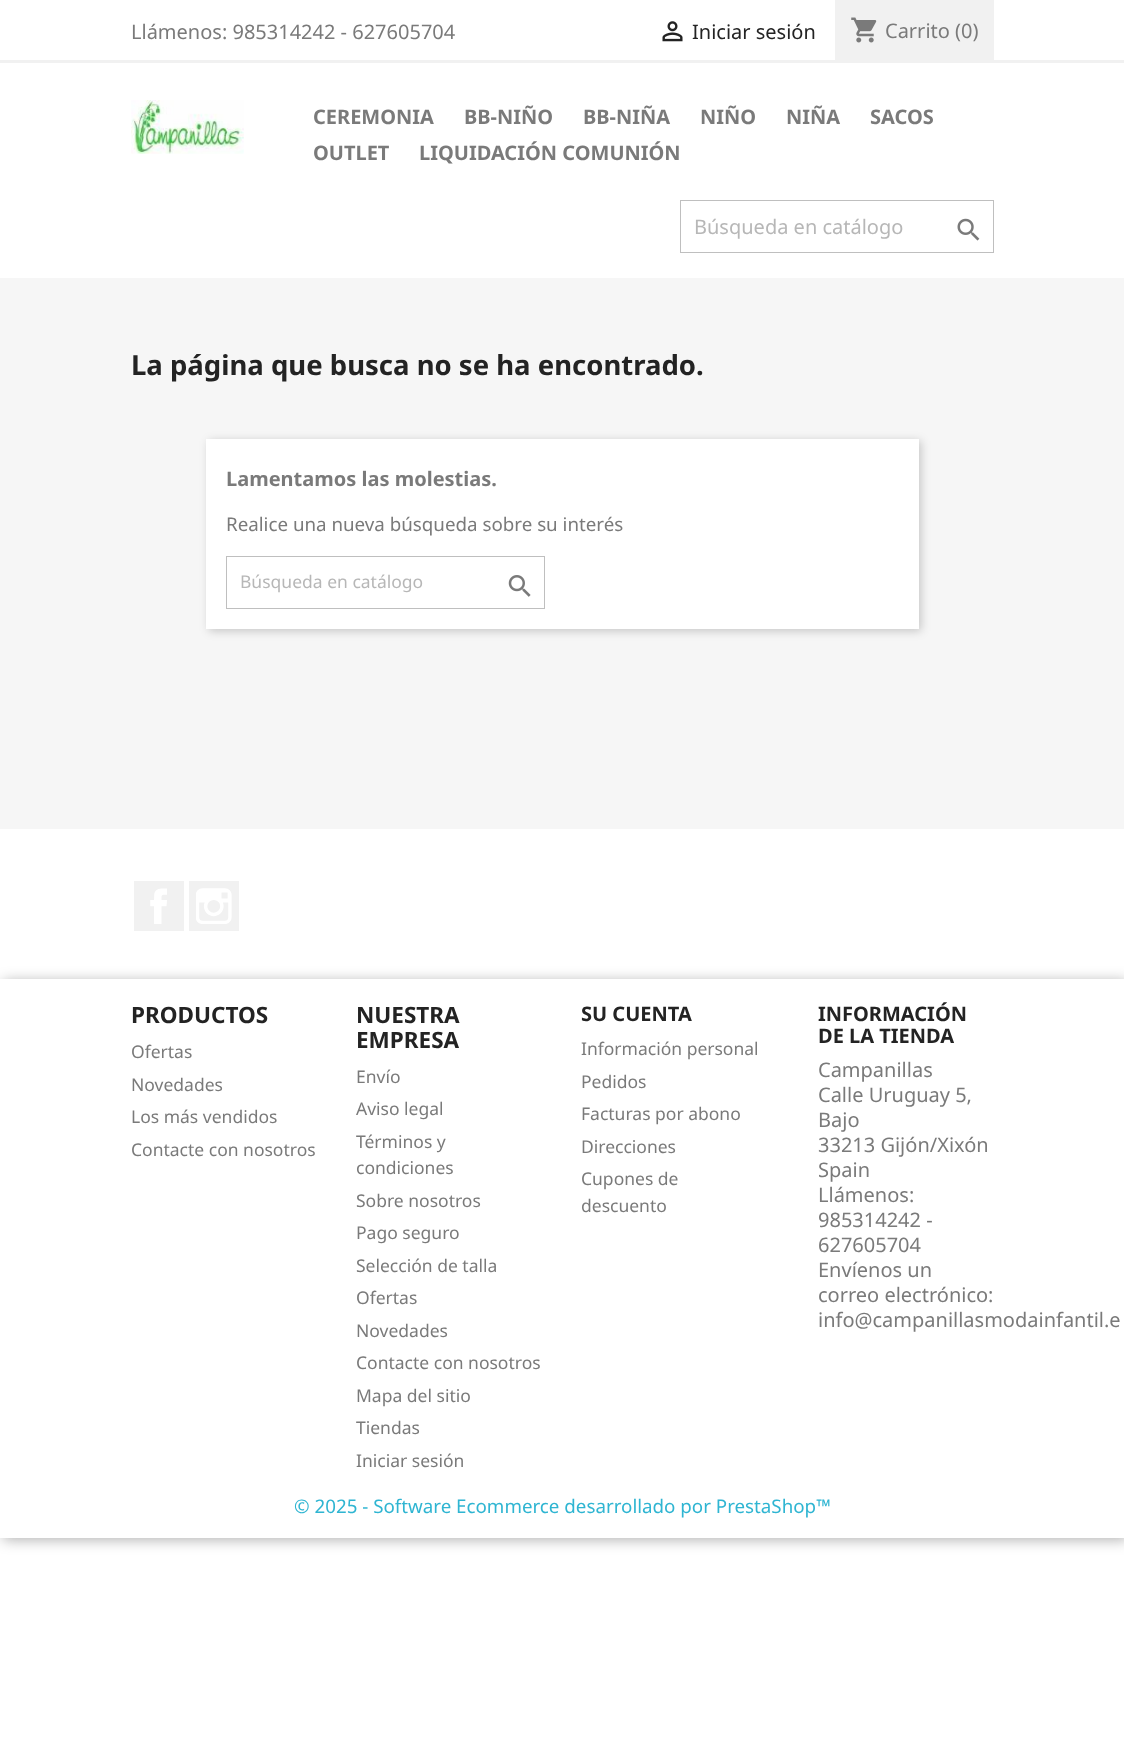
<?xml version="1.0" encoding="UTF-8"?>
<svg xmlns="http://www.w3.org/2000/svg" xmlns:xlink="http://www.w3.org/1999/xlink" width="1124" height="1763">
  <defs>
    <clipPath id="clip1"><path d="M 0 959 h 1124 v 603 h -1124 z m 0 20 h 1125 v 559 h -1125 z" clip-rule="evenodd" /></clipPath>
  </defs>
  <rect width="100%" height="100%" fill="#ffffff" />
  <rect y="60" width="1124" height="3" fill="#f1f1f1" />
  <image x="662" y="21" width="21" height="21" xlink:href="image1.png" />
  <rect x="835" width="159" height="60" fill="#f1f1f1" />
  <image x="851" y="17" width="26" height="26" xlink:href="image2.png" />
  <image x="131" y="100" width="113" height="54" xlink:href="image3.png" />
  <rect x="680.5" y="200.5" width="313" height="52" fill="none" stroke="#bfbfbf" />
  <image x="957" y="218" width="23" height="23" xlink:href="image4.png" />
  <rect y="278" width="1124" height="551" fill="#f6f6f6" />
  <rect x="209" y="441" width="712" height="190" fill="#000000" fill-opacity="0.2" filter="blur(5px)" />
  <rect x="206" y="439" width="713" height="190" fill="#ffffff" />
  <rect x="226.5" y="556.5" width="318" height="52" fill="none" stroke="#bfbfbf" />
  <image x="508" y="575" width="23" height="22" xlink:href="image5.png" />
  <rect x="134" y="881" width="50" height="50" fill="#f1f1f1" />
  <image x="150" y="888" width="17" height="36" xlink:href="image6.png" />
  <rect x="189" y="881" width="50" height="50" fill="#f1f1f1" />
  <image x="196" y="888" width="36" height="36" xlink:href="image7.png" />
  <g clip-path="url(#clip1)">
    <rect x="3" y="981" width="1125" height="559" fill="#000000" fill-opacity="0.3" filter="blur(7px)" />
  </g>
  <text x="131" y="39" style="font-family: Noto Sans; font-size: 20px; fill: #7a7a7a">Llámenos: 985314242 - 627605704</text>
  <text x="692" y="39" style="font-family: Noto Sans; font-size: 20px; fill: #232323">Iniciar sesión</text>
  <text x="885" y="38" style="font-family: Noto Sans; font-size: 20px; fill: #7a7a7a">Carrito (0)</text>
  <text x="313" y="124" style="font-family: Noto Sans; font-size: 20px; font-weight: bold; fill: #7a7a7a">CEREMONIA</text>
  <text x="464" y="124" style="font-family: Noto Sans; font-size: 20px; font-weight: bold; fill: #7a7a7a">BB-NIÑO</text>
  <text x="583" y="124" style="font-family: Noto Sans; font-size: 20px; font-weight: bold; fill: #7a7a7a">BB-NIÑA</text>
  <text x="700" y="124" style="font-family: Noto Sans; font-size: 20px; font-weight: bold; fill: #7a7a7a">NIÑO</text>
  <text x="786" y="124" style="font-family: Noto Sans; font-size: 20px; font-weight: bold; fill: #7a7a7a">NIÑA</text>
  <text x="870" y="124" style="font-family: Noto Sans; font-size: 20px; font-weight: bold; fill: #7a7a7a">SACOS</text>
  <text x="313" y="160" style="font-family: Noto Sans; font-size: 20px; font-weight: bold; fill: #7a7a7a">OUTLET</text>
  <text x="419" y="160" style="font-family: Noto Sans; font-size: 20px; font-weight: bold; fill: #7a7a7a">LIQUIDACIÓN COMUNIÓN</text>
  <text x="694" y="234" style="font-family: Noto Sans; font-size: 20px; fill: #b7b7b7">Búsqueda en catálogo</text>
  <text x="131" y="375" style="font-family: Noto Sans; font-size: 27.5px; font-weight: bold; fill: #232323">La página que busca no se ha encontrado.</text>
  <text x="226" y="486" style="font-family: Noto Sans; font-size: 20px; font-weight: bold; fill: #7a7a7a">Lamentamos las molestias.</text>
  <text x="226" y="531" style="font-family: Noto Sans; font-size: 18.75px; fill: #7a7a7a">Realice una nueva búsqueda sobre su interés</text>
  <text x="240" y="588" style="font-family: Noto Sans; font-size: 17.5px; fill: #b7b7b7">Búsqueda en catálogo</text>
  <text x="131" y="1023" style="font-family: Noto Sans; font-size: 22.5px; font-weight: bold; fill: #232323">PRODUCTOS</text>
  <text x="131" y="1058" style="font-family: Noto Sans; font-size: 17.5px; fill: #7a7a7a">Ofertas</text>
  <text x="131" y="1091" style="font-family: Noto Sans; font-size: 17.5px; fill: #7a7a7a">Novedades</text>
  <text x="131" y="1123" style="font-family: Noto Sans; font-size: 17.5px; fill: #7a7a7a">Los más vendidos</text>
  <text x="131" y="1156" style="font-family: Noto Sans; font-size: 17.5px; fill: #7a7a7a">Contacte con nosotros</text>
  <text x="356" y="1023" style="font-family: Noto Sans; font-size: 22.5px; font-weight: bold; fill: #232323">NUESTRA</text>
  <text x="356" y="1048" style="font-family: Noto Sans; font-size: 22.5px; font-weight: bold; fill: #232323">EMPRESA</text>
  <text x="356" y="1083" style="font-family: Noto Sans; font-size: 17.5px; fill: #7a7a7a">Envío</text>
  <text x="356" y="1115" style="font-family: Noto Sans; font-size: 17.5px; fill: #7a7a7a">Aviso legal</text>
  <text x="356" y="1148" style="font-family: Noto Sans; font-size: 17.5px; fill: #7a7a7a">Términos y</text>
  <text x="356" y="1174" style="font-family: Noto Sans; font-size: 17.5px; fill: #7a7a7a">condiciones</text>
  <text x="356" y="1207" style="font-family: Noto Sans; font-size: 17.5px; fill: #7a7a7a">Sobre nosotros</text>
  <text x="356" y="1239" style="font-family: Noto Sans; font-size: 17.5px; fill: #7a7a7a">Pago seguro</text>
  <text x="356" y="1272" style="font-family: Noto Sans; font-size: 17.5px; fill: #7a7a7a">Selección de talla</text>
  <text x="356" y="1304" style="font-family: Noto Sans; font-size: 17.5px; fill: #7a7a7a">Ofertas</text>
  <text x="356" y="1337" style="font-family: Noto Sans; font-size: 17.5px; fill: #7a7a7a">Novedades</text>
  <text x="356" y="1369" style="font-family: Noto Sans; font-size: 17.5px; fill: #7a7a7a">Contacte con nosotros</text>
  <text x="356" y="1402" style="font-family: Noto Sans; font-size: 17.5px; fill: #7a7a7a">Mapa del sitio</text>
  <text x="356" y="1434" style="font-family: Noto Sans; font-size: 17.5px; fill: #7a7a7a">Tiendas</text>
  <text x="356" y="1467" style="font-family: Noto Sans; font-size: 17.5px; fill: #7a7a7a">Iniciar sesión</text>
  <text x="581" y="1021" style="font-family: Noto Sans; font-size: 20px; font-weight: bold; fill: #232323">SU CUENTA</text>
  <text x="581" y="1055" style="font-family: Noto Sans; font-size: 17.5px; fill: #7a7a7a">Información personal</text>
  <text x="581" y="1088" style="font-family: Noto Sans; font-size: 17.5px; fill: #7a7a7a">Pedidos</text>
  <text x="581" y="1120" style="font-family: Noto Sans; font-size: 17.5px; fill: #7a7a7a">Facturas por abono</text>
  <text x="581" y="1153" style="font-family: Noto Sans; font-size: 17.5px; fill: #7a7a7a">Direcciones</text>
  <text x="581" y="1185" style="font-family: Noto Sans; font-size: 17.5px; fill: #7a7a7a">Cupones de</text>
  <text x="581" y="1212" style="font-family: Noto Sans; font-size: 17.5px; fill: #7a7a7a">descuento</text>
  <text x="818" y="1021" style="font-family: Noto Sans; font-size: 20px; font-weight: bold; fill: #232323">INFORMACIÓN</text>
  <text x="818" y="1043" style="font-family: Noto Sans; font-size: 20px; font-weight: bold; fill: #232323">DE LA TIENDA</text>
  <text x="818" y="1077" style="font-family: Noto Sans; font-size: 20px; fill: #7a7a7a">Campanillas</text>
  <text x="818" y="1102" style="font-family: Noto Sans; font-size: 20px; fill: #7a7a7a">Calle Uruguay 5,</text>
  <text x="818" y="1127" style="font-family: Noto Sans; font-size: 20px; fill: #7a7a7a">Bajo</text>
  <text x="818" y="1152" style="font-family: Noto Sans; font-size: 20px; fill: #7a7a7a">33213 Gijón/Xixón</text>
  <text x="818" y="1177" style="font-family: Noto Sans; font-size: 20px; fill: #7a7a7a">Spain</text>
  <text x="818" y="1202" style="font-family: Noto Sans; font-size: 20px; fill: #7a7a7a">Llámenos:</text>
  <text x="818" y="1227" style="font-family: Noto Sans; font-size: 20px; fill: #7a7a7a">985314242 -</text>
  <text x="818" y="1252" style="font-family: Noto Sans; font-size: 20px; fill: #7a7a7a">627605704</text>
  <text x="818" y="1277" style="font-family: Noto Sans; font-size: 20px; fill: #7a7a7a">Envíenos un</text>
  <text x="818" y="1302" style="font-family: Noto Sans; font-size: 20px; fill: #7a7a7a">correo electrónico:</text>
  <text x="818" y="1327" style="font-family: Noto Sans; font-size: 20px; fill: #7a7a7a">info@campanillasmodainfantil.e</text>
  <text x="294" y="1513" style="font-family: Noto Sans; font-size: 18.75px; fill: #2fb5d2">© 2025 - Software Ecommerce desarrollado por PrestaShop™</text>
</svg>
